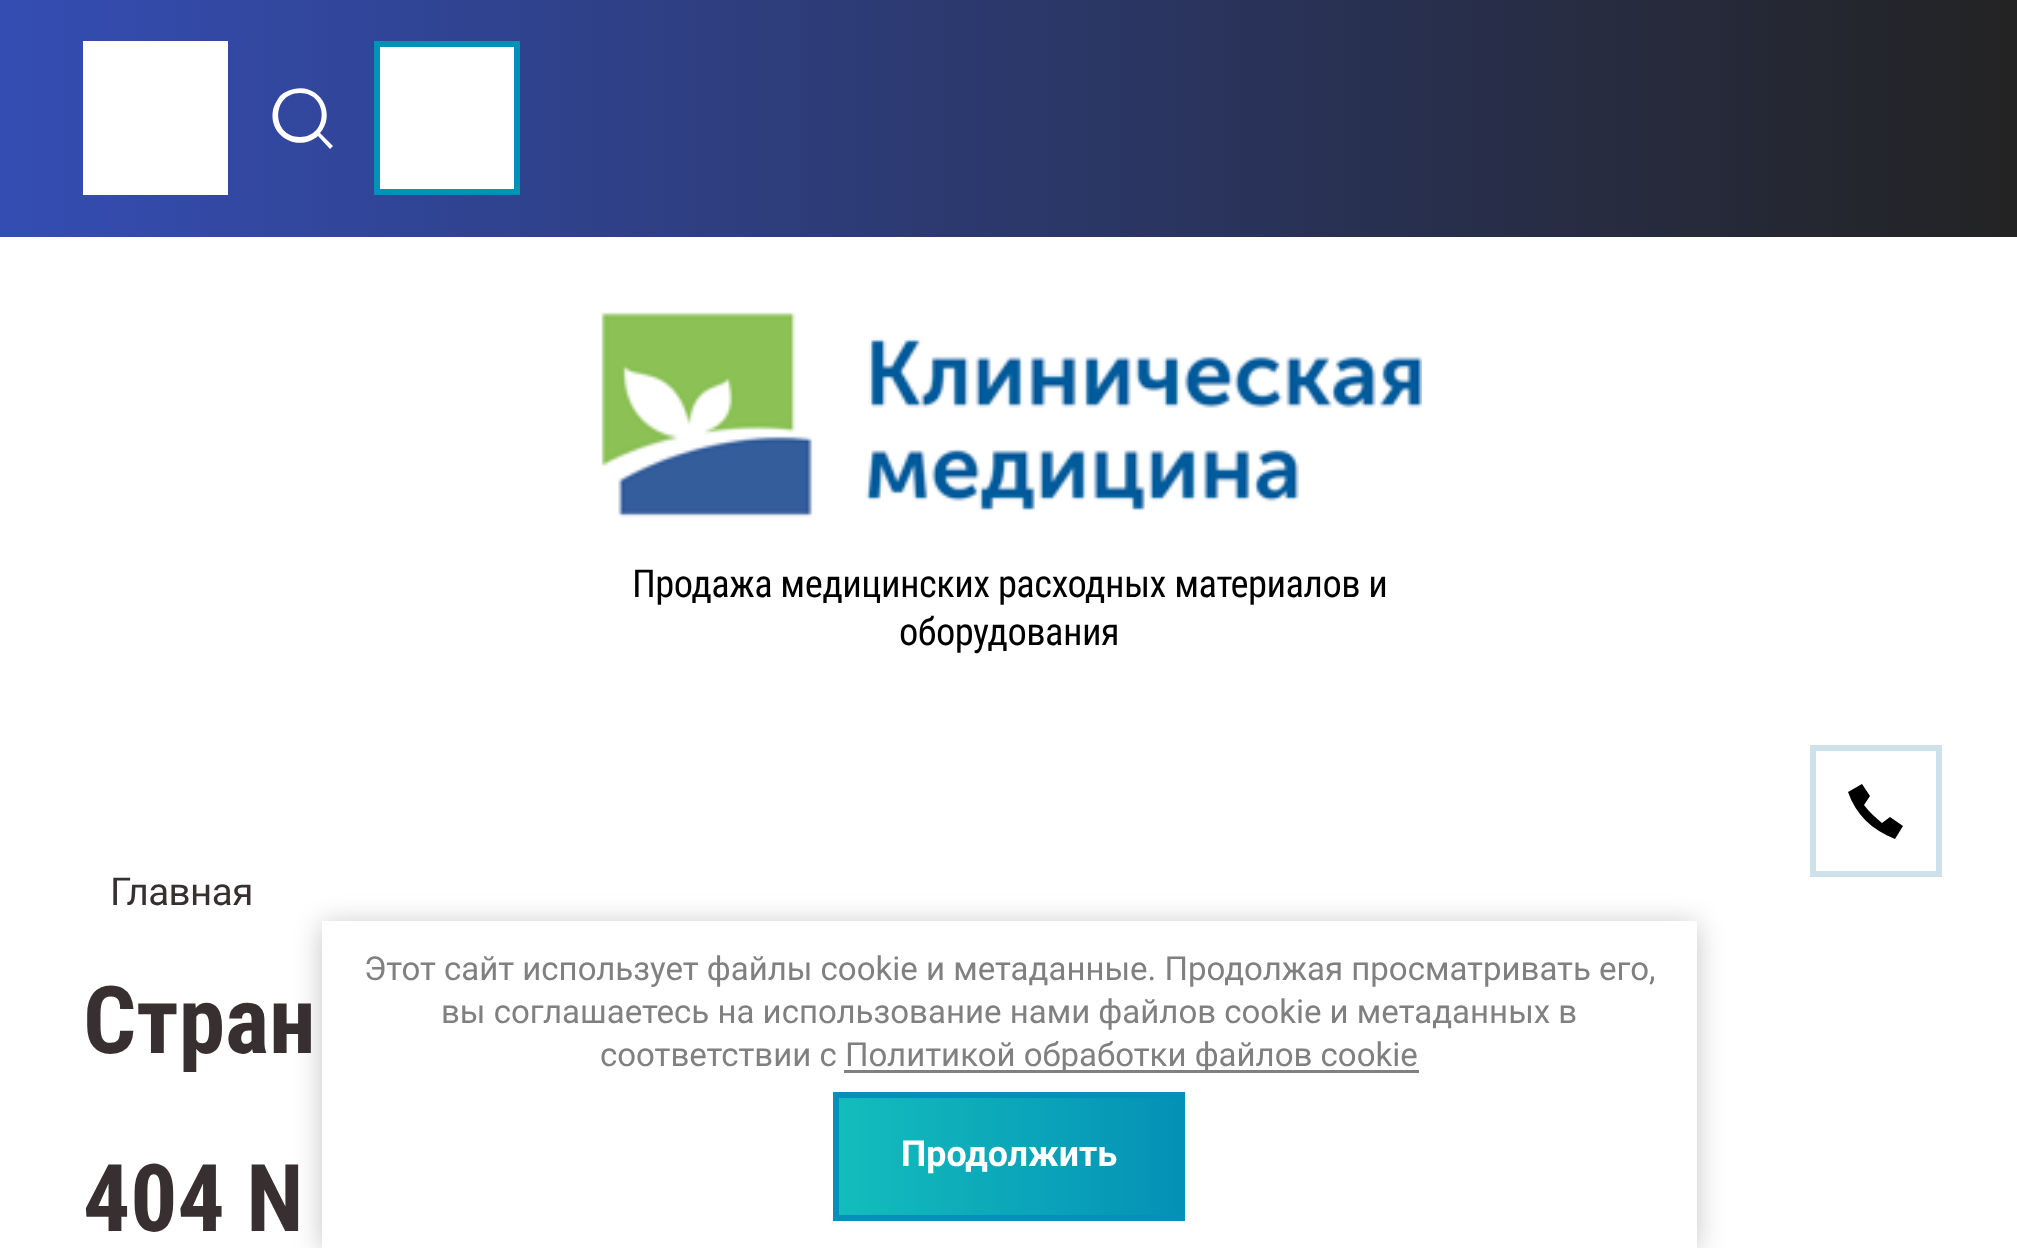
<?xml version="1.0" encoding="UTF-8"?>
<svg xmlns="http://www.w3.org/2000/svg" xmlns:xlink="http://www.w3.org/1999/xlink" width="2017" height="1248">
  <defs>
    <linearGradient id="g1" gradientUnits="userSpaceOnUse" x1="0" y1="118" x2="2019" y2="118"><stop offset="0" stop-color="#344db3" /><stop offset="1" stop-color="#232323" /></linearGradient>
    <linearGradient id="g2" gradientUnits="userSpaceOnUse" x1="1180" y1="1156" x2="839" y2="1156"><stop offset="0" stop-color="#0491b7" /><stop offset="1" stop-color="#13bdbc" /></linearGradient>
  </defs>
  <rect width="100%" height="100%" fill="#ffffff" />
  <rect width="2017" height="237" fill="url(#g1)" />
  <rect x="83" y="41" width="145" height="154" fill="#ffffff" />
  <path d="M 320 133 l 13 13 l -3 3 l -12 -13 c -20 17 -50 0 -45 -26 c 1 -5 4 -10 7 -14 c 4 -4 9 -6 14 -7 c 26 -6 43 25 26 44 z m -20 4 c 29 0 29 -44 0 -44 c -29 0 -29 44 0 44 z" fill="#ffffff" fill-rule="evenodd" />
  <rect x="377" y="44" width="140" height="148" fill="#ffffff" stroke="#0491b7" stroke-width="6" />
  <image x="601" y="312" width="821" height="206" xlink:href="image1.png" />
  <path d="M 1848 792 l 14 -8 l 8 12 l -6 9 c 5 7 12 13 18 18 l 8 -6 l 13 9 l -8 13 c -23 -9 -39 -24 -47 -47 z" fill="#000000" fill-rule="evenodd" />
  <rect x="1813" y="748" width="126" height="126" fill="none" stroke="#cce1e9" stroke-width="6" />
  <rect x="322" y="924" width="1375" height="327" fill="#000000" fill-opacity="0.23" filter="blur(14px)" />
  <rect x="322" y="921" width="1375" height="327" fill="#ffffff" />
  <rect x="844" y="1070" width="575" height="3" fill="#808080" />
  <rect x="839" y="1098" width="340" height="117" fill="url(#g2)" />
  <rect x="836" y="1095" width="346" height="123" fill="none" stroke="#0491b7" stroke-width="6" />
  <text x="632" y="597" style="font-family: Roboto Condensed; font-size: 38.5px; letter-spacing: -0.55px; fill: #000000">Продажа медицинских расходных материалов и</text>
  <text x="899" y="645" style="font-family: Roboto Condensed; font-size: 38.5px; letter-spacing: -0.55px; fill: #000000">оборудования</text>
  <text x="110" y="905" style="font-family: Roboto; font-size: 38.5px; letter-spacing: -0.5px; fill: #383030">Главная</text>
  <text x="83" y="1053" style="font-family: Roboto Condensed; font-size: 93.5px; font-weight: bold; fill: #383030">Стран</text>
  <text x="83" y="1231" style="font-family: Roboto Condensed; font-size: 93.5px; font-weight: bold; fill: #383030">404 N</text>
  <text x="364" y="980" style="font-family: Roboto; font-size: 33px; fill: #808080">Этот сайт использует файлы cookie и метаданные. Продолжая просматривать его,</text>
  <text x="441" y="1023" style="font-family: Roboto; font-size: 33px; fill: #808080">вы соглашаетесь на использование нами файлов cookie и метаданных в</text>
  <text x="600" y="1066" style="font-family: Roboto; font-size: 33px; fill: #808080">соответствии с</text>
  <text x="845" y="1066" style="font-family: Roboto; font-size: 33px; fill: #808080">Политикой обработки файлов cookie</text>
  <text x="901" y="1166" style="font-family: Roboto; font-size: 35.75px; font-weight: bold; fill: #ffffff">Продолжить</text>
</svg>
